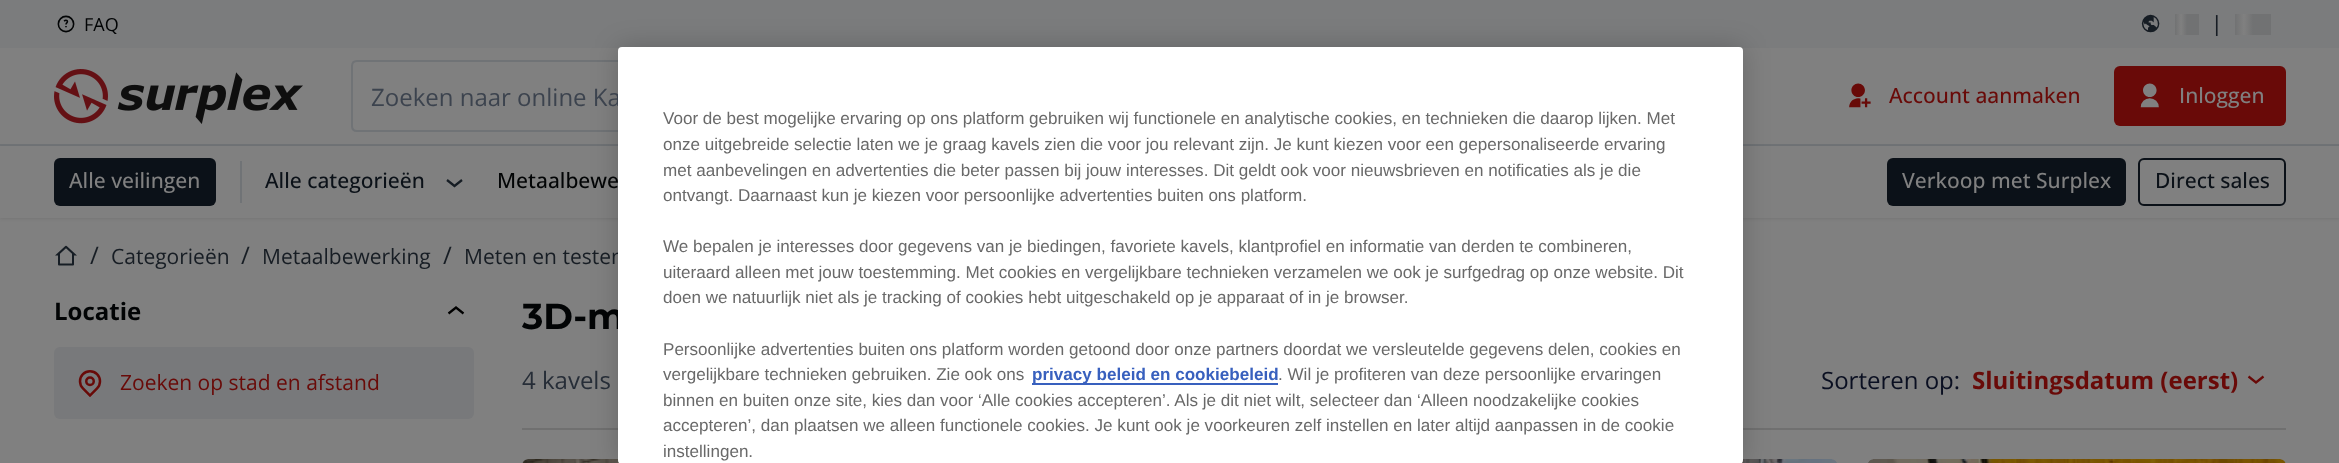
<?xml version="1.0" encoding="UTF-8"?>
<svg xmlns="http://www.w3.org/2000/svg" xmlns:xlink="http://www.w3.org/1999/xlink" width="2339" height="463">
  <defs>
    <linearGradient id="g1" gradientUnits="userSpaceOnUse" x1="2175" y1="24" x2="2181" y2="24"><stop offset="0" stop-color="#717273" /><stop offset="1" stop-color="#808080" /></linearGradient>
    <linearGradient id="g2" gradientUnits="userSpaceOnUse" x1="2181" y1="24" x2="2187" y2="24"><stop offset="0" stop-color="#808080" /><stop offset="1" stop-color="#717273" /></linearGradient>
    <linearGradient id="g3" gradientUnits="userSpaceOnUse" x1="2235" y1="24" x2="2244" y2="24"><stop offset="0" stop-color="#717273" /><stop offset="1" stop-color="#808080" /></linearGradient>
    <linearGradient id="g4" gradientUnits="userSpaceOnUse" x1="2244" y1="24" x2="2253" y2="24"><stop offset="0" stop-color="#808080" /><stop offset="1" stop-color="#717273" /></linearGradient>
    <clipPath id="clip1"><rect x="1973" y="362" width="265" height="36" /></clipPath>
  </defs>
  <rect width="100%" height="100%" fill="#808080" />
  <rect width="2339" height="48" fill="#7b7c7d" />
  <image x="57" y="15" width="18" height="18" xlink:href="image1.png" />
  <image x="2141" y="14" width="19" height="19" xlink:href="image2.png" />
  <rect x="2187" y="14" width="12" height="21" fill="#717273" />
  <rect x="2175" y="14" width="6" height="21" fill="url(#g1)" />
  <rect x="2181" y="14" width="6" height="21" fill="url(#g2)" />
  <rect x="2253" y="14" width="18" height="21" fill="#717273" />
  <rect x="2235" y="14" width="9" height="21" fill="url(#g3)" />
  <rect x="2244" y="14" width="9" height="21" fill="url(#g4)" />
  <rect y="144" width="2339" height="2" fill="#707376" />
  <image x="54" y="69" width="249" height="55" xlink:href="image3.png" />
  <path d="M 357 61 h 889 v 70 h -889 c -3 0 -5 -2 -5 -5 v -60 c 0 -3 2 -5 5 -5 z" fill="none" stroke="#707376" stroke-width="2" />
  <image x="1849" y="83" width="22" height="25" xlink:href="image4.png" />
  <rect x="2114" y="66" width="172" height="60" rx="6" fill="#690a08" />
  <image x="2140" y="83" width="19" height="25" xlink:href="image5.png" />
  <rect y="147" width="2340" height="72" fill="#000000" fill-opacity="0.08" filter="blur(1.5px)" />
  <rect y="146" width="2339" height="72" fill="#808080" />
  <rect x="54" y="158" width="162" height="48" rx="6" fill="#0b1118" />
  <rect x="240" y="161" width="2" height="42" fill="#707376" />
  <image x="446" y="179" width="17" height="9" xlink:href="image6.png" />
  <rect x="1887" y="158" width="239" height="48" rx="6" fill="#0b1118" />
  <rect x="2139" y="159" width="146" height="46" rx="5" fill="none" stroke="#0b1118" stroke-width="2" />
  <image x="55" y="245" width="22" height="21" xlink:href="image7.png" />
  <image x="447" y="306" width="18" height="9" xlink:href="image8.png" />
  <rect x="54" y="347" width="420" height="72" rx="6" fill="#78797b" />
  <image x="78" y="370" width="24" height="27" xlink:href="image9.png" />
  <rect x="522" y="428" width="1764" height="2" fill="#707070" />
  <image x="2247" y="375" width="18" height="9" xlink:href="image10.png" />
  <image x="522" y="459" width="98" height="4" xlink:href="image11.png" />
  <image x="1741" y="459" width="96" height="4" xlink:href="image12.png" />
  <image x="1868" y="459" width="418" height="4" xlink:href="image13.png" />
  <rect x="618" y="47" width="1125" height="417" rx="4" fill="#000000" fill-opacity="0.2" filter="blur(13.5px)" />
  <text x="84" y="31" style="font-family: Open Sans; font-size: 18px; fill: #020405">FAQ</text>
  <text x="2211" y="31" style="font-family: Open Sans; font-size: 21px; font-weight: 500; fill: #171d24">|</text>
  <text x="371" y="106" style="font-family: Open Sans; font-size: 24px; fill: #3c434e">Zoeken naar online Ka</text>
  <text x="1889" y="103" style="font-family: Open Sans; font-size: 21px; font-weight: 500; fill: #690a08">Account aanmaken</text>
  <text x="2179" y="103" style="font-family: Open Sans; font-size: 21px; font-weight: 500; fill: #808080">Inloggen</text>
  <text x="69" y="188" style="font-family: Open Sans; font-size: 21px; font-weight: 500; fill: #808080">Alle veilingen</text>
  <text x="265" y="188" style="font-family: Open Sans; font-size: 21px; font-weight: 500; fill: #0b1118">Alle categorieën</text>
  <text x="497" y="188" style="font-family: Open Sans; font-size: 21px; font-weight: 500; fill: #020405">Metaalbewe</text>
  <text x="1902" y="188" style="font-family: Open Sans; font-size: 21px; font-weight: 500; fill: #808080">Verkoop met Surplex</text>
  <text x="2155" y="188" style="font-family: Open Sans; font-size: 21px; font-weight: 500; fill: #0b1118">Direct sales</text>
  <text x="90" y="264" style="font-family: Open Sans; font-size: 24px; fill: #171d24">/</text>
  <text x="111" y="264" style="font-family: Open Sans; font-size: 21px; fill: #171d24">Categorieën</text>
  <text x="241" y="264" style="font-family: Open Sans; font-size: 24px; fill: #171d24">/</text>
  <text x="262" y="264" style="font-family: Open Sans; font-size: 21px; fill: #171d24">Metaalbewerking</text>
  <text x="443" y="264" style="font-family: Open Sans; font-size: 24px; fill: #171d24">/</text>
  <text x="464" y="264" style="font-family: Open Sans; font-size: 21px; fill: #171d24">Meten en testen</text>
  <text x="54" y="320" style="font-family: Open Sans; font-size: 24px; font-weight: bold; fill: #020405">Locatie</text>
  <text x="120" y="390" style="font-family: Open Sans; font-size: 21px; fill: #690a08">Zoeken op stad en afstand</text>
  <text x="522" y="329" style="font-family: Montserrat; font-size: 36px; font-weight: bold; fill: #020405">3D-m</text>
  <text x="522" y="389" style="font-family: Open Sans; font-size: 24px; fill: #262d37">4 kavels</text>
  <text x="1821" y="389" style="font-family: Open Sans; font-size: 24px; fill: #0a0f21">Sorteren op:</text>
  <g clip-path="url(#clip1)">
    <text x="1972" y="389" style="font-family: Open Sans; font-size: 24px; font-weight: bold; fill: #690a08">Sluitingsdatum (eerst)</text>
  </g>
  <rect x="618" y="47" width="1125" height="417" rx="4" fill="#ffffff" />
  <text x="663" y="124" style="font-family: Liberation Sans; font-size: 17.07px; fill: #696969">Voor de best mogelijke ervaring op ons platform gebruiken wij functionele en analytische cookies, en technieken die daarop lijken. Met</text>
  <text x="663" y="150" style="font-family: Liberation Sans; font-size: 17.07px; fill: #696969">onze uitgebreide selectie laten we je graag kavels zien die voor jou relevant zijn. Je kunt kiezen voor een gepersonaliseerde ervaring</text>
  <text x="663" y="176" style="font-family: Liberation Sans; font-size: 17.07px; fill: #696969">met aanbevelingen en advertenties die beter passen bij jouw interesses. Dit geldt ook voor nieuwsbrieven en notificaties als je die</text>
  <text x="663" y="201" style="font-family: Liberation Sans; font-size: 17.07px; fill: #696969">ontvangt. Daarnaast kun je kiezen voor persoonlijke advertenties buiten ons platform.</text>
  <text x="663" y="252" style="font-family: Liberation Sans; font-size: 17.07px; fill: #696969">We bepalen je interesses door gegevens van je biedingen, favoriete kavels, klantprofiel en informatie van derden te combineren,</text>
  <text x="663" y="278" style="font-family: Liberation Sans; font-size: 17.07px; fill: #696969">uiteraard alleen met jouw toestemming. Met cookies en vergelijkbare technieken verzamelen we ook je surfgedrag op onze website. Dit</text>
  <text x="663" y="303" style="font-family: Liberation Sans; font-size: 17.07px; fill: #696969">doen we natuurlijk niet als je tracking of cookies hebt uitgeschakeld op je apparaat of in je browser.</text>
  <text x="663" y="355" style="font-family: Liberation Sans; font-size: 17.07px; fill: #696969">Persoonlijke advertenties buiten ons platform worden getoond door onze partners doordat we versleutelde gegevens delen, cookies en</text>
  <text x="663" y="380" style="font-family: Liberation Sans; font-size: 17.07px; fill: #696969">vergelijkbare technieken gebruiken. Zie ook ons</text>
  <rect x="1032" y="383" width="246" height="2" fill="#3860be" />
  <text x="1032" y="380" style="font-family: Liberation Sans; font-size: 17.07px; font-weight: bold; fill: #3860be">privacy beleid en cookiebeleid</text>
  <text x="1278" y="380" style="font-family: Liberation Sans; font-size: 17.07px; fill: #696969">. Wil je profiteren van deze persoonlijke ervaringen</text>
  <text x="663" y="406" style="font-family: Liberation Sans; font-size: 17.07px; fill: #696969">binnen en buiten onze site, kies dan voor ‘Alle cookies accepteren’. Als je dit niet wilt, selecteer dan ‘Alleen noodzakelijke cookies</text>
  <text x="663" y="431" style="font-family: Liberation Sans; font-size: 17.07px; fill: #696969">accepteren’, dan plaatsen we alleen functionele cookies. Je kunt ook je voorkeuren zelf instellen en later altijd aanpassen in de cookie</text>
  <text x="663" y="457" style="font-family: Liberation Sans; font-size: 17.07px; fill: #696969">instellingen.</text>
</svg>
